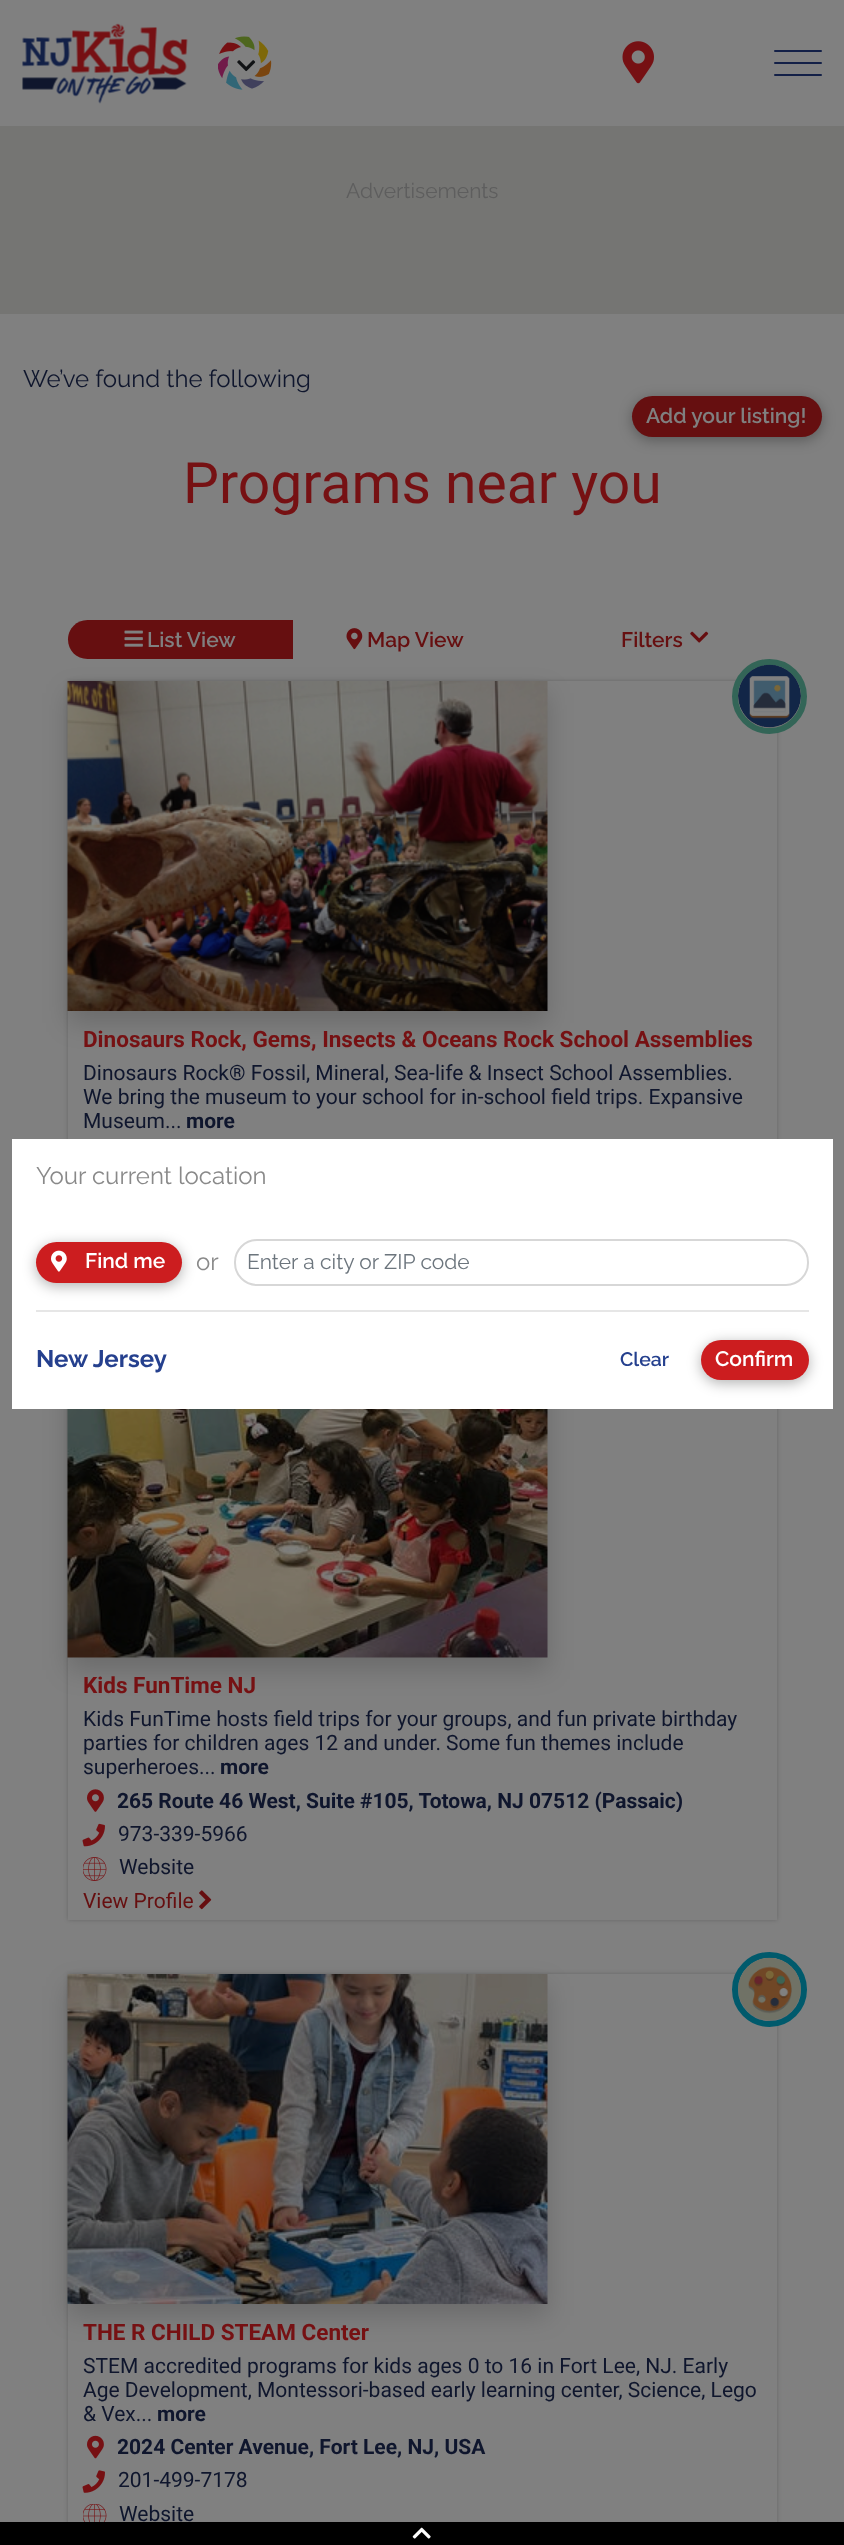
<?xml version="1.0" encoding="UTF-8"?>
<svg xmlns="http://www.w3.org/2000/svg" xmlns:xlink="http://www.w3.org/1999/xlink" width="844" height="2545">
  <defs>
    <clipPath id="clip1"><path d="M 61 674 h 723 v 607 h -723 z m 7 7 h 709 v 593 h -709 z" clip-rule="evenodd" /></clipPath>
    <clipPath id="clip2"><rect x="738" y="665" width="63" height="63" rx="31.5" /></clipPath>
    <clipPath id="clip3"><path d="M 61 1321 h 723 v 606 h -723 z m 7 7 h 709 v 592 h -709 z" clip-rule="evenodd" /></clipPath>
    <clipPath id="clip4"><path d="M 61 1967 h 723 v 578 h -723 z m 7 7 h 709 v 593 h -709 z" clip-rule="evenodd" /></clipPath>
    <clipPath id="clip5"><rect x="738" y="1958" width="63" height="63" rx="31.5" /></clipPath>
    <clipPath id="clip6"><rect x="83" y="1787" width="679" height="25" /></clipPath>
  </defs>
  <rect width="100%" height="100%" fill="#808080" />
  <image x="22" y="23" width="166" height="81" xlink:href="image1.png" />
  <image x="218" y="36" width="54" height="54" xlink:href="image2.png" />
  <image x="237" y="60" width="19" height="12" xlink:href="image3.png" />
  <image x="622" y="41" width="32" height="43" xlink:href="image4.png" />
  <rect x="774" y="62" width="48" height="2" rx="1" fill="#132047" />
  <rect x="774" y="50" width="48" height="2" rx="1" fill="#132047" />
  <rect x="774" y="74" width="48" height="2" rx="1" fill="#132047" />
  <rect y="126" width="844" height="188" fill="#757573" />
  <rect x="632" y="399" width="190" height="41" rx="20.5" fill="#000000" fill-opacity="0.31" filter="blur(7px)" />
  <rect x="632" y="396" width="190" height="41" rx="20.5" fill="#660f10" />
  <path d="M 87.5 620 h 205.5 v 39 h -205.5 c -11 0 -19.5 -8.5 -19.5 -19.5 c 0 -11 8.5 -19.5 19.5 -19.5 z" fill="#660f10" />
  <image x="124" y="630" width="19" height="17" xlink:href="image5.png" />
  <image x="346" y="628" width="17" height="22" xlink:href="image6.png" />
  <image x="690" y="631" width="19" height="12" xlink:href="image7.png" />
  <g clip-path="url(#clip1)">
    <rect x="68" y="681" width="709" height="593" fill="#000000" fill-opacity="0.2" filter="blur(2px)" />
  </g>
  <rect x="68" y="693" width="480" height="330" fill="#000000" fill-opacity="0.17" filter="blur(13px)" />
  <image x="67" y="681" width="481" height="330" xlink:href="image8.png" />
  <circle cx="769.5" cy="696.5" r="34.5" fill="#808080" stroke="#336557" stroke-width="6" />
  <g clip-path="url(#clip2)">
    <rect x="738" y="677" width="63" height="63" rx="31.5" fill="#000000" fill-opacity="0.17" filter="blur(13px)" />
  </g>
  <image x="738" y="664" width="63" height="64" xlink:href="image9.png" />
  <g clip-path="url(#clip3)">
    <rect x="68" y="1328" width="709" height="592" fill="#000000" fill-opacity="0.2" filter="blur(2px)" />
  </g>
  <rect x="68" y="1340" width="480" height="330" fill="#000000" fill-opacity="0.17" filter="blur(13px)" />
  <image x="67" y="1409" width="481" height="249" xlink:href="image10.png" />
  <image x="87" y="1789" width="17" height="23" xlink:href="image11.png" />
  <image x="82" y="1823" width="23" height="24" xlink:href="image12.png" />
  <image x="83" y="1857" width="24" height="24" xlink:href="image13.png" />
  <image x="199" y="1890" width="13" height="20" xlink:href="image14.png" />
  <g clip-path="url(#clip4)">
    <rect x="68" y="1974" width="709" height="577" fill="#000000" fill-opacity="0.2" filter="blur(2px)" />
  </g>
  <rect x="68" y="1986" width="480" height="330" fill="#000000" fill-opacity="0.17" filter="blur(13px)" />
  <image x="67" y="1974" width="481" height="330" xlink:href="image15.png" />
  <circle cx="769.5" cy="1989.5" r="34.5" fill="#808080" stroke="#005a6c" stroke-width="6" />
  <g clip-path="url(#clip5)">
    <rect x="738" y="1970" width="63" height="63" rx="31.5" fill="#000000" fill-opacity="0.17" filter="blur(13px)" />
  </g>
  <image x="738" y="1957" width="63" height="63" xlink:href="image16.png" />
  <image x="87" y="2435" width="17" height="24" xlink:href="image17.png" />
  <image x="82" y="2470" width="23" height="23" xlink:href="image18.png" />
  <image x="83" y="2504" width="24" height="18" xlink:href="image19.png" />
  <rect x="12" y="1139" width="821" height="270" fill="#ffffff" />
  <rect x="36" y="1245" width="146" height="41" rx="20.5" fill="#000000" fill-opacity="0.31" filter="blur(7px)" />
  <rect x="36" y="1242" width="146" height="41" rx="20.5" fill="#cc1d1f" />
  <image x="51" y="1250" width="16" height="22" xlink:href="image20.png" />
  <rect x="235" y="1240" width="573" height="45" rx="22" fill="none" stroke="#d7d7d7" stroke-width="2" />
  <rect x="36" y="1310" width="773" height="2" fill="#e6e6e6" />
  <rect x="701" y="1343" width="108" height="40" rx="20" fill="#000000" fill-opacity="0.31" filter="blur(7px)" />
  <rect x="701" y="1340" width="108" height="40" rx="20" fill="#cc1d1f" />
  <rect y="2522" width="844" height="23" fill="#000000" />
  <image x="412" y="2527" width="19" height="12" xlink:href="image21.png" />
  <text x="346" y="198" style="font-family: Raleway; font-size: 21px; fill: #5e5e5e">Advertisements</text>
  <text x="23" y="387" style="font-family: Raleway; font-size: 24px; fill: #0f162d">We’ve found the following</text>
  <text x="646" y="423" style="font-family: Raleway; font-size: 21px; font-weight: 600; fill: #808080">Add your listing!</text>
  <text x="183" y="503" style="font-family: Roboto; font-size: 57px; fill: #761113">Programs near you</text>
  <text x="147" y="647" style="font-family: Raleway; font-size: 21px; font-weight: 600; fill: #808080">List View</text>
  <text x="367" y="647" style="font-family: Raleway; font-size: 21px; font-weight: 600; fill: #660f10">Map View</text>
  <text x="621" y="647" style="font-family: Raleway; font-size: 21px; font-weight: 600; fill: #660f10">Filters</text>
  <text x="83" y="1047" style="font-family: Roboto; font-size: 22.5px; font-weight: bold; fill: #761113">Dinosaurs Rock, Gems, Insects &amp; Oceans Rock School Assemblies</text>
  <text x="83" y="1080" style="font-family: Roboto; font-size: 21px; fill: #0f162d">Dinosaurs Rock® Fossil, Mineral, Sea-life &amp; Insect School Assemblies.</text>
  <text x="83" y="1104" style="font-family: Roboto; font-size: 21px; fill: #0f162d">We bring the museum to your school for in-school field trips. Expansive</text>
  <text x="83" y="1128" style="font-family: Roboto; font-size: 21px; fill: #0f162d">Museum...</text>
  <text x="186" y="1128" style="font-family: Roboto; font-size: 21px; font-weight: bold; fill: #0f162d">more</text>
  <text x="83" y="1693" style="font-family: Roboto; font-size: 22.5px; font-weight: bold; fill: #761113">Kids FunTime NJ</text>
  <text x="83" y="1726" style="font-family: Roboto; font-size: 21px; fill: #0f162d">Kids FunTime hosts field trips for your groups, and fun private birthday</text>
  <text x="83" y="1750" style="font-family: Roboto; font-size: 21px; fill: #0f162d">parties for children ages 12 and under. Some fun themes include</text>
  <text x="83" y="1774" style="font-family: Roboto; font-size: 21px; fill: #0f162d">superheroes...</text>
  <text x="220" y="1774" style="font-family: Roboto; font-size: 21px; font-weight: bold; fill: #0f162d">more</text>
  <g clip-path="url(#clip6)">
    <text x="117" y="1808" style="font-family: Roboto; font-size: 21px; font-weight: bold; fill: #0f162d">265 Route 46 West, Suite #105, Totowa, NJ 07512 (Passaic)</text>
  </g>
  <text x="118" y="1841" style="font-family: Roboto; font-size: 21px; fill: #0f162d">973-339-5966</text>
  <text x="119" y="1874" style="font-family: Roboto; font-size: 21px; fill: #0f162d">Website</text>
  <text x="83" y="1908" style="font-family: Roboto; font-size: 21px; fill: #660f10">View Profile</text>
  <text x="83" y="2340" style="font-family: Roboto; font-size: 22.5px; font-weight: bold; fill: #761113">THE R CHILD STEAM Center</text>
  <text x="83" y="2373" style="font-family: Roboto; font-size: 21px; fill: #0f162d">STEM accredited programs for kids ages 0 to 16 in Fort Lee, NJ. Early</text>
  <text x="83" y="2397" style="font-family: Roboto; font-size: 21px; fill: #0f162d">Age Development, Montessori-based early learning center, Science, Lego</text>
  <text x="83" y="2421" style="font-family: Roboto; font-size: 21px; fill: #0f162d">&amp; Vex...</text>
  <text x="157" y="2421" style="font-family: Roboto; font-size: 21px; font-weight: bold; fill: #0f162d">more</text>
  <text x="117" y="2454" style="font-family: Roboto; font-size: 21px; font-weight: bold; fill: #0f162d">2024 Center Avenue, Fort Lee, NJ, USA</text>
  <text x="118" y="2487" style="font-family: Roboto; font-size: 21px; fill: #0f162d">201-499-7178</text>
  <text x="119" y="2521" style="font-family: Roboto; font-size: 21px; fill: #0f162d">Website</text>
  <text x="36" y="1184" style="font-family: Raleway; font-size: 24px; fill: #898989">Your current location</text>
  <text x="85" y="1268" style="font-family: Raleway; font-size: 21px; font-weight: 600; fill: #ffffff">Find me</text>
  <text x="196" y="1270" style="font-family: Raleway; font-size: 24px; fill: #898989">or</text>
  <text x="247" y="1269" style="font-family: Raleway; font-size: 21px; fill: #6c757d">Enter a city or ZIP code</text>
  <text x="36" y="1367" style="font-family: Raleway; font-size: 24px; font-weight: bold; fill: #25408e">New Jersey</text>
  <text x="620" y="1366" style="font-family: Raleway; font-size: 19.5px; font-weight: 600; fill: #25408e">Clear</text>
  <text x="715" y="1366" style="font-family: Raleway; font-size: 21px; font-weight: 600; fill: #ffffff">Confirm</text>
</svg>
